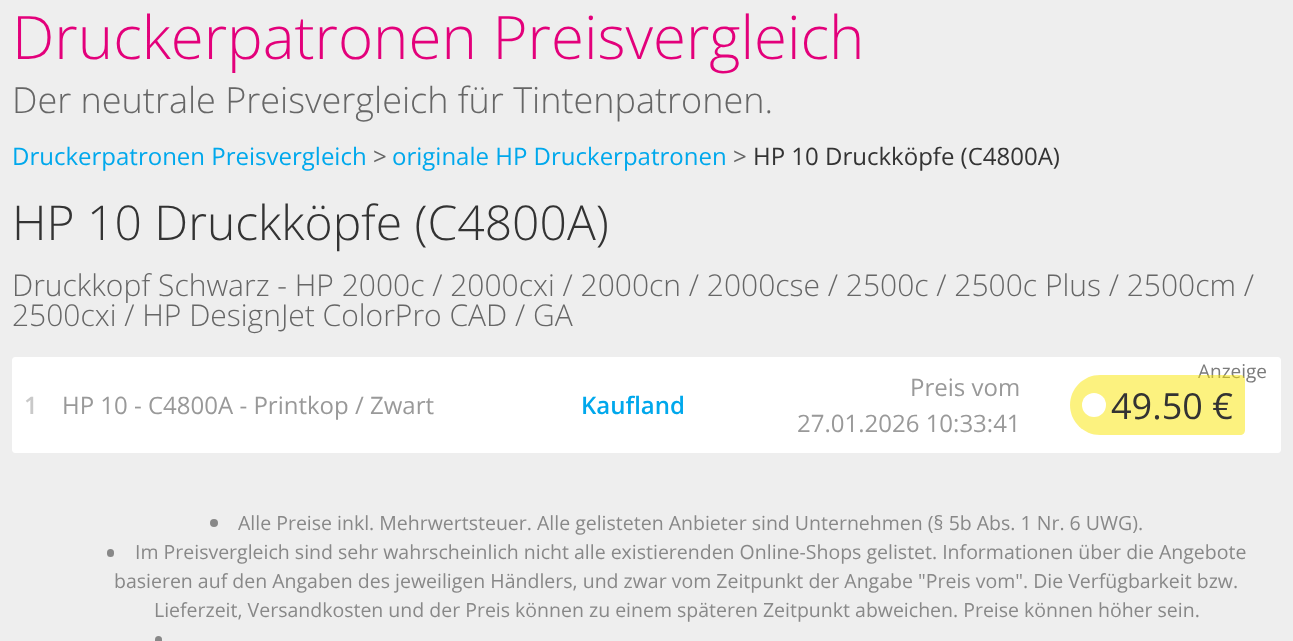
<?xml version="1.0" encoding="UTF-8"?>
<svg xmlns="http://www.w3.org/2000/svg" xmlns:xlink="http://www.w3.org/1999/xlink" width="1293" height="641">
  <rect width="100%" height="100%" fill="#eeeeee" />
  <path d="M 15 357 h 35 v 96 h -35 c -1.5 0 -3 -1.5 -3 -3 v -90 c 0 -1.5 1.5 -3 3 -3 z" fill="#ffffff" />
  <rect x="50" y="357" width="982" height="96" fill="#ffffff" />
  <path d="M 1032 357 h 246 c 1.5 0 3 1.5 3 3 v 90 c 0 1.5 -1.5 3 -3 3 h -246 z" fill="#ffffff" />
  <circle cx="214" cy="523" r="4" fill="#888888" />
  <rect x="107" y="549" width="7" height="8" rx="3.5" fill="#888888" />
  <rect x="155" y="636" width="7" height="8" rx="3.5" fill="#888888" />
  <text x="12" y="59" style="font-family: Open Sans; font-size: 60px; font-weight: 300; fill: #e3007b">Druckerpatronen Preisvergleich</text>
  <text x="12" y="113" style="font-family: Open Sans; font-size: 36px; font-weight: 300; fill: #666666">Der neutrale Preisvergleich für Tintenpatronen.</text>
  <text x="12" y="165" style="font-family: Open Sans; font-size: 24px; fill: #00a8ec">Druckerpatronen Preisvergleich</text>
  <text x="373" y="165" style="font-family: Open Sans; font-size: 24px; fill: #666666">&gt;</text>
  <text x="392" y="165" style="font-family: Open Sans; font-size: 24px; fill: #00a8ec">originale HP Druckerpatronen</text>
  <text x="733" y="165" style="font-family: Open Sans; font-size: 24px; fill: #666666">&gt;</text>
  <text x="753" y="165" style="font-family: Open Sans; font-size: 24px; fill: #333333">HP 10 Druckköpfe (C4800A)</text>
  <text x="12" y="240" style="font-family: Open Sans; font-size: 48px; font-weight: 300; fill: #333333">HP 10 Druckköpfe (C4800A)</text>
  <text x="12" y="296" style="font-family: Open Sans; font-size: 30px; font-weight: 300; fill: #666666">Druckkopf Schwarz - HP 2000c / 2000cxi / 2000cn / 2000cse / 2500c / 2500c Plus / 2500cm /</text>
  <text x="12" y="326" style="font-family: Open Sans; font-size: 30px; font-weight: 300; fill: #666666">2500cxi / HP DesignJet ColorPro CAD / GA</text>
  <text x="24" y="414" style="font-family: Open Sans; font-size: 24px; font-weight: 600; fill: #c9c9c9">1</text>
  <text x="62" y="414" style="font-family: Open Sans; font-size: 24px; fill: #999999">HP 10 - C4800A - Printkop / Zwart</text>
  <text x="581" y="414" style="font-family: Open Sans; font-size: 24px; font-weight: 600; fill: #00a8ec">Kaufland</text>
  <text x="910" y="396" style="font-family: Open Sans; font-size: 24px; fill: #999999">Preis vom</text>
  <text x="797" y="432" style="font-family: Open Sans; font-size: 24px; fill: #999999">27.01.2026 10:33:41</text>
  <text x="1198" y="378" style="font-family: Open Sans; font-size: 19px; fill: #7b7b7b">Anzeige</text>
  <path d="M 1100 375 h 140 c 3 0 5 2 5 5 v 50 c 0 3 -2 5 -5 5 h -140 c -16.5 0 -30 -13.5 -30 -30 c 0 -16.5 13.5 -30 30 -30 z" fill="#fae600" fill-opacity="0.5" />
  <circle cx="1094" cy="405" r="12" fill="#ffffff" />
  <text x="1111" y="419" style="font-family: Open Sans; font-size: 36px; fill: #333333">49.50 €</text>
  <text x="238" y="530" style="font-family: Open Sans; font-size: 19.5px; fill: #888888">Alle Preise inkl. Mehrwertsteuer. Alle gelisteten Anbieter sind Unternehmen (§ 5b Abs. 1 Nr. 6 UWG).</text>
  <text x="135" y="559" style="font-family: Open Sans; font-size: 19.5px; fill: #888888">Im Preisvergleich sind sehr wahrscheinlich nicht alle existierenden Online-Shops gelistet. Informationen über die Angebote</text>
  <text x="114" y="588" style="font-family: Open Sans; font-size: 19.5px; fill: #888888">basieren auf den Angaben des jeweiligen Händlers, und zwar vom Zeitpunkt der Angabe "Preis vom". Die Verfügbarkeit bzw.</text>
  <text x="154" y="617" style="font-family: Open Sans; font-size: 19.5px; fill: #888888">Lieferzeit, Versandkosten und der Preis können zu einem späteren Zeitpunkt abweichen. Preise können höher sein.</text>
</svg>
